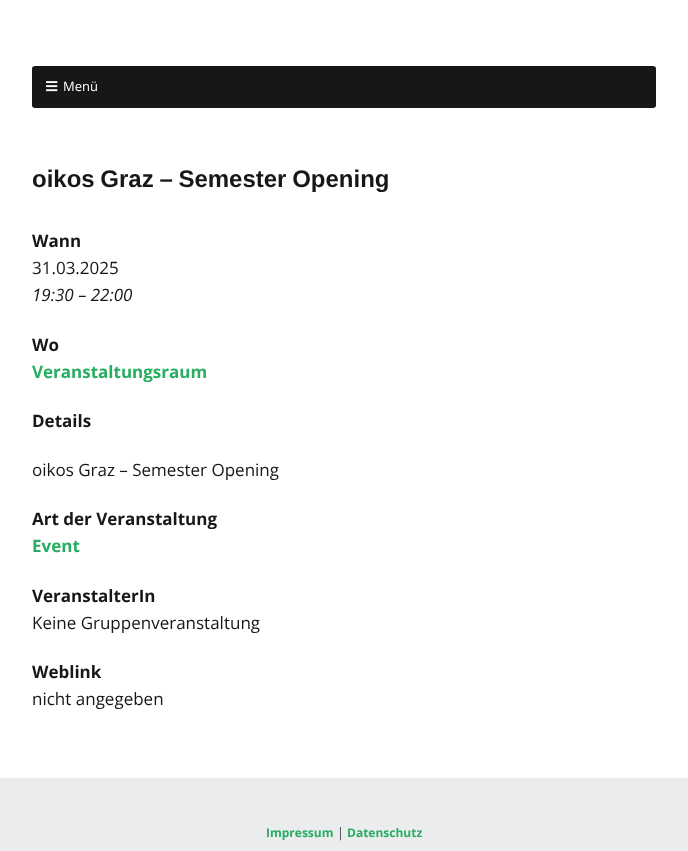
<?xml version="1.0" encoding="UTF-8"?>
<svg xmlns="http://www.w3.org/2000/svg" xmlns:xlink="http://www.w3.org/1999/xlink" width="688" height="851">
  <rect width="100%" height="100%" fill="#ffffff" />
  <rect x="32" y="66" width="624" height="42" rx="3" fill="#171717" />
  <image x="46" y="81" width="12" height="11" xlink:href="image1.png" />
  <rect y="778" width="688" height="73" fill="#eaecee" />
  <text x="63" y="91" style="font-family: Open Sans; font-size: 13px; fill: #ffffff">Menü</text>
  <text x="32" y="187" word-spacing="-1" style="font-family: Liberation Sans; font-size: 24px; font-weight: bold; fill: #171717">oikos Graz – Semester Opening</text>
  <text x="32" y="247" style="font-family: Open Sans; font-size: 17px; font-weight: bold; fill: #171717">Wann</text>
  <text x="32" y="274" style="font-family: Open Sans; font-size: 17px; fill: #171717">31.03.2025</text>
  <text x="32" y="301" style="font-family: Open Sans; font-size: 17px; font-style: italic; fill: #171717">19:30 – 22:00</text>
  <text x="32" y="351" style="font-family: Open Sans; font-size: 17px; font-weight: bold; fill: #171717">Wo</text>
  <text x="32" y="378" style="font-family: Open Sans; font-size: 17px; font-weight: bold; fill: #27ae60">Veranstaltungsraum</text>
  <text x="32" y="427" style="font-family: Open Sans; font-size: 17px; font-weight: bold; fill: #171717">Details</text>
  <text x="32" y="476" style="font-family: Open Sans; font-size: 17px; fill: #171717">oikos Graz – Semester Opening</text>
  <text x="32" y="525" style="font-family: Open Sans; font-size: 17px; font-weight: bold; fill: #171717">Art der Veranstaltung</text>
  <text x="32" y="552" style="font-family: Open Sans; font-size: 17px; font-weight: bold; fill: #27ae60">Event</text>
  <text x="32" y="602" style="font-family: Open Sans; font-size: 17px; font-weight: bold; fill: #171717">VeranstalterIn</text>
  <text x="32" y="629" style="font-family: Open Sans; font-size: 17px; fill: #171717">Keine Gruppenveranstaltung</text>
  <text x="32" y="678" style="font-family: Open Sans; font-size: 17px; font-weight: bold; fill: #171717">Weblink</text>
  <text x="32" y="705" style="font-family: Open Sans; font-size: 17px; fill: #171717">nicht angegeben</text>
  <text x="266" y="837" style="font-family: Open Sans; font-size: 12px; font-weight: bold; fill: #27ae60">Impressum</text>
  <text x="337" y="837" style="font-family: Open Sans; font-size: 13px; fill: #464849">|</text>
  <text x="347" y="837" style="font-family: Open Sans; font-size: 12px; font-weight: bold; fill: #27ae60">Datenschutz</text>
</svg>
